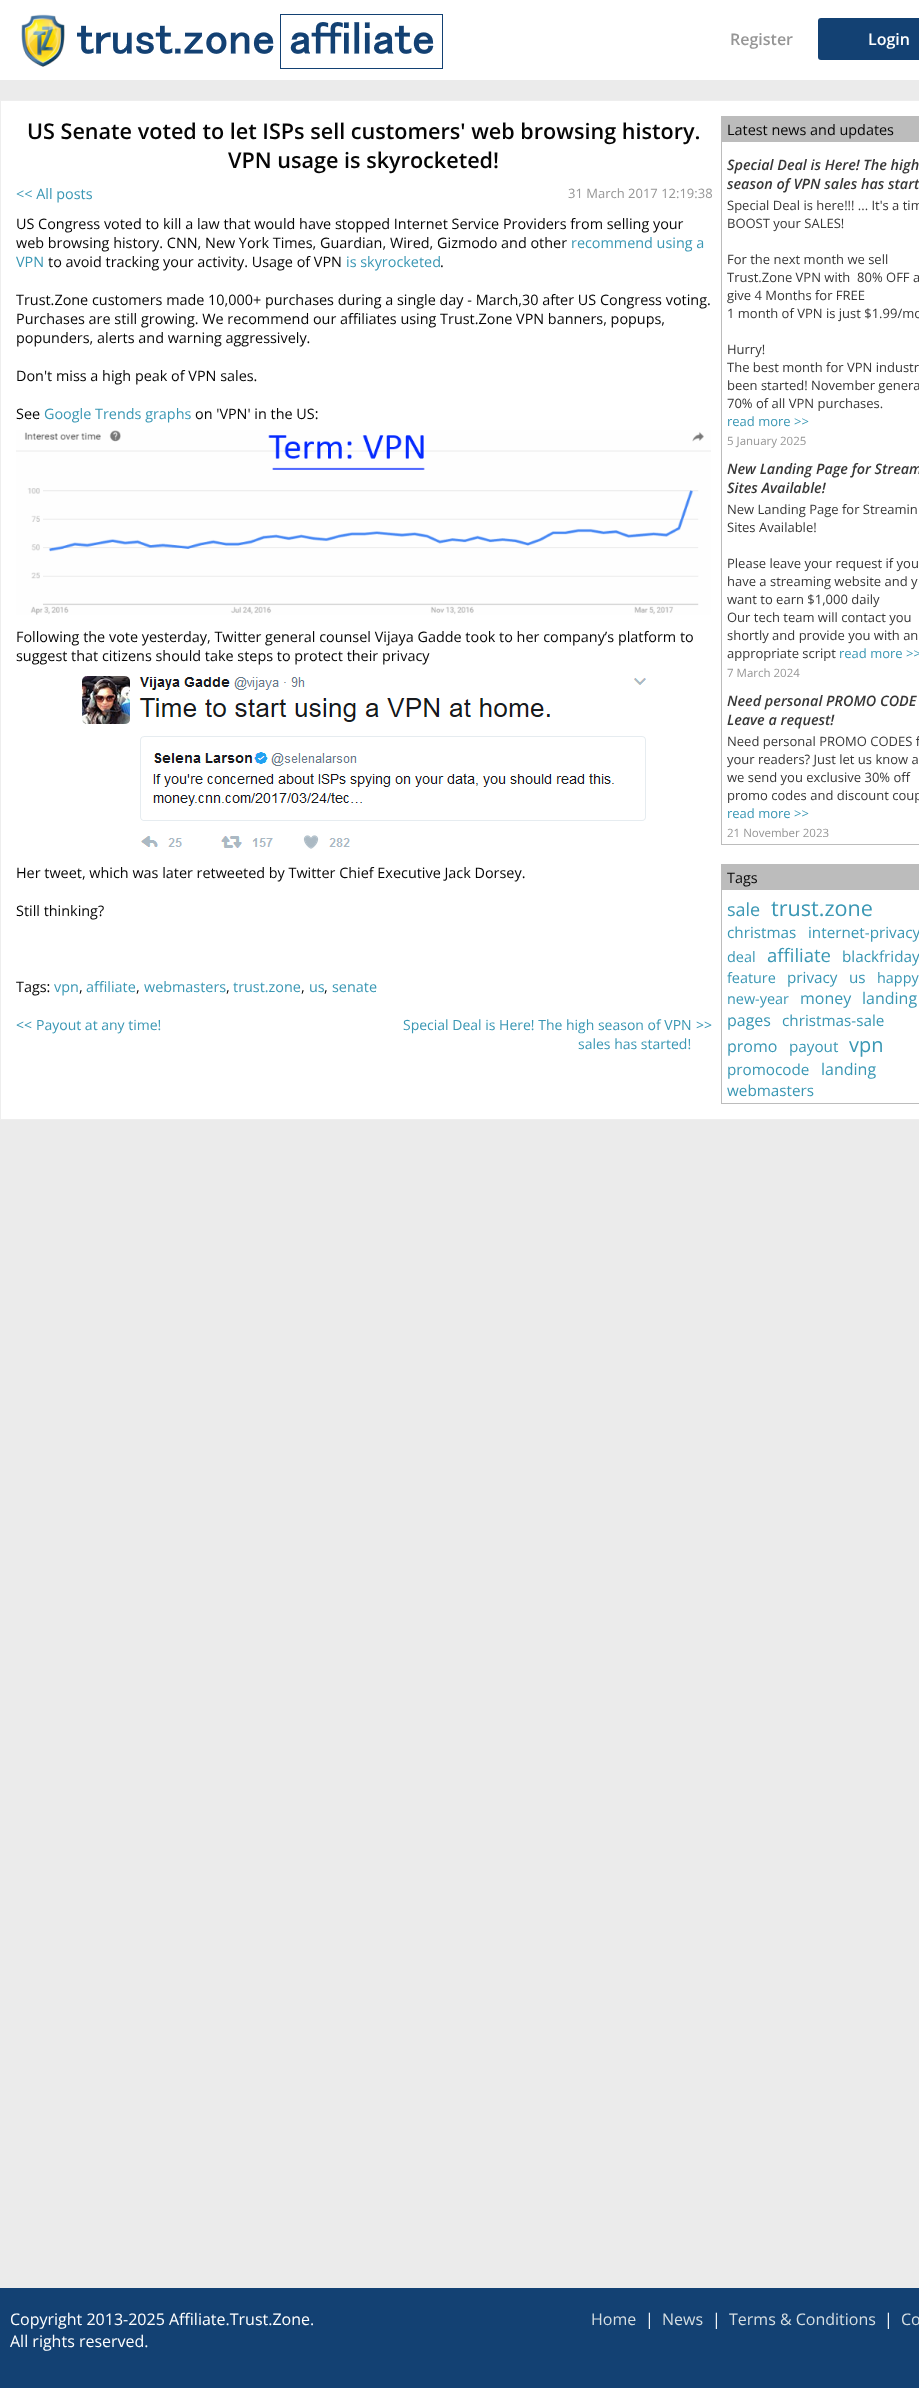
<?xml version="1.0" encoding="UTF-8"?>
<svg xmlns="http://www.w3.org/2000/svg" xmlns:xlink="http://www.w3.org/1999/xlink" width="919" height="2388">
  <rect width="100%" height="100%" fill="#ebebeb" />
  <rect width="919" height="80" fill="#ffffff" />
  <image x="21" y="14" width="422" height="55" xlink:href="image1.png" />
  <rect x="818" y="18" width="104" height="42" rx="3" fill="#134173" />
  <rect x="0.5" y="100.5" width="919" height="1019" fill="#ffffff" stroke="#eeeeee" />
  <image x="16" y="430" width="695" height="185" xlink:href="image2.png" />
  <image x="82" y="676" width="564" height="173" xlink:href="image3.png" />
  <rect x="721.5" y="116.5" width="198" height="728" fill="none" stroke="#bcbcbc" />
  <rect x="722" y="117" width="197" height="25" fill="#bcbcbc" />
  <rect x="721.5" y="864.5" width="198" height="239" fill="none" stroke="#bcbcbc" />
  <rect x="722" y="865" width="197" height="25" fill="#bcbcbc" />
  <rect y="2288" width="919" height="100" fill="#134173" />
  <text x="730" y="45" style="font-family: Open Sans; font-size: 16px; font-weight: 600; fill: #969696">Register</text>
  <text x="868" y="45" style="font-family: Open Sans; font-size: 16px; font-weight: 600; fill: #ffffff">Login</text>
  <text x="27" y="139" style="font-family: Open Sans; font-size: 21.6px; font-weight: 600; fill: #050505">US Senate voted to let ISPs sell customers' web browsing history.</text>
  <text x="228" y="168" style="font-family: Open Sans; font-size: 21.6px; font-weight: 600; fill: #050505">VPN usage is skyrocketed!</text>
  <text x="16" y="199" style="font-family: Open Sans; font-size: 14.4px; fill: #3a97b4">&lt;&lt; All posts</text>
  <text x="568" y="198" style="font-family: Open Sans; font-size: 13px; fill: #969696">31 March 2017 12:19:38</text>
  <text x="16" y="229" style="font-family: Open Sans; font-size: 14.4px; fill: #050505">US Congress voted to kill a law that would have stopped Internet Service Providers from selling your</text>
  <text x="16" y="248" style="font-family: Open Sans; font-size: 14.4px; fill: #050505">web browsing history. CNN, New York Times, Guardian, Wired, Gizmodo and other</text>
  <text x="571" y="248" style="font-family: Open Sans; font-size: 14.4px; fill: #3a97b4">recommend using a</text>
  <text x="16" y="267" style="font-family: Open Sans; font-size: 14.4px; fill: #3a97b4">VPN</text>
  <text x="48" y="267" style="font-family: Open Sans; font-size: 14.4px; fill: #050505">to avoid tracking your activity. Usage of VPN</text>
  <text x="346" y="267" style="font-family: Open Sans; font-size: 14.4px; fill: #3a97b4">is skyrocketed</text>
  <text x="440" y="267" style="font-family: Open Sans; font-size: 14.4px; fill: #050505">.</text>
  <text x="16" y="305" style="font-family: Open Sans; font-size: 14.4px; fill: #050505">Trust.Zone customers made 10,000+ purchases during a single day - March,30 after US Congress voting.</text>
  <text x="16" y="324" style="font-family: Open Sans; font-size: 14.4px; fill: #050505">Purchases are still growing. We recommend our affiliates using Trust.Zone VPN banners, popups,</text>
  <text x="16" y="343" style="font-family: Open Sans; font-size: 14.4px; fill: #050505">popunders, alerts and warning aggressively.</text>
  <text x="16" y="381" style="font-family: Open Sans; font-size: 14.4px; fill: #050505">Don't miss a high peak of VPN sales.</text>
  <text x="16" y="419" style="font-family: Open Sans; font-size: 14.4px; fill: #050505">See</text>
  <text x="44" y="419" style="font-family: Open Sans; font-size: 14.4px; fill: #3a97b4">Google Trends graphs</text>
  <text x="195" y="419" style="font-family: Open Sans; font-size: 14.4px; fill: #050505">on 'VPN' in the US:</text>
  <text x="16" y="642" style="font-family: Open Sans; font-size: 14.4px; fill: #050505">Following the vote yesterday, Twitter general counsel Vijaya Gadde took to her company’s platform to</text>
  <text x="16" y="661" style="font-family: Open Sans; font-size: 14.4px; fill: #050505">suggest that citizens should take steps to protect their privacy</text>
  <text x="16" y="878" style="font-family: Open Sans; font-size: 14.4px; fill: #050505">Her tweet, which was later retweeted by Twitter Chief Executive Jack Dorsey.</text>
  <text x="16" y="916" style="font-family: Open Sans; font-size: 14.4px; fill: #050505">Still thinking?</text>
  <text x="16" y="992" style="font-family: Open Sans; font-size: 14.4px; fill: #050505">Tags:</text>
  <text x="54" y="992" style="font-family: Open Sans; font-size: 14.4px; fill: #3a97b4">vpn</text>
  <text x="79" y="992" style="font-family: Open Sans; font-size: 14.4px; fill: #050505">,</text>
  <text x="86" y="992" style="font-family: Open Sans; font-size: 14.4px; fill: #3a97b4">affiliate</text>
  <text x="136" y="992" style="font-family: Open Sans; font-size: 14.4px; fill: #050505">,</text>
  <text x="144" y="992" style="font-family: Open Sans; font-size: 14.4px; fill: #3a97b4">webmasters</text>
  <text x="226" y="992" style="font-family: Open Sans; font-size: 14.4px; fill: #050505">,</text>
  <text x="233" y="992" style="font-family: Open Sans; font-size: 14.4px; fill: #3a97b4">trust.zone</text>
  <text x="301" y="992" style="font-family: Open Sans; font-size: 14.4px; fill: #050505">,</text>
  <text x="309" y="992" style="font-family: Open Sans; font-size: 14.4px; fill: #3a97b4">us</text>
  <text x="324" y="992" style="font-family: Open Sans; font-size: 14.4px; fill: #050505">,</text>
  <text x="332" y="992" style="font-family: Open Sans; font-size: 14.4px; fill: #3a97b4">senate</text>
  <text x="16" y="1030" style="font-family: Open Sans; font-size: 14px; fill: #3a97b4">&lt;&lt;</text>
  <text x="36" y="1030" style="font-family: Open Sans; font-size: 14px; fill: #3a97b4">Payout at any time!</text>
  <text x="403" y="1030" style="font-family: Open Sans; font-size: 14px; fill: #3a97b4">Special Deal is Here! The high season of VPN</text>
  <text x="696" y="1030" style="font-family: Open Sans; font-size: 14px; fill: #3a97b4">&gt;&gt;</text>
  <text x="578" y="1049" style="font-family: Open Sans; font-size: 14px; fill: #3a97b4">sales has started!</text>
  <text x="727" y="135" style="font-family: Open Sans; font-size: 14.4px; fill: #050505">Latest news and updates</text>
  <text x="727" y="170" style="font-family: Open Sans; font-size: 14.4px; font-weight: 600; font-style: italic; fill: #373737">Special Deal is Here! The high</text>
  <text x="727" y="189" style="font-family: Open Sans; font-size: 14.4px; font-weight: 600; font-style: italic; fill: #373737">season of VPN sales has start</text>
  <text x="727" y="210" style="font-family: Open Sans; font-size: 13px; fill: #373737">Special Deal is here!!! ... It's a tim</text>
  <text x="727" y="228" style="font-family: Open Sans; font-size: 13px; fill: #373737">BOOST your SALES!</text>
  <text x="727" y="264" style="font-family: Open Sans; font-size: 13px; fill: #373737">For the next month we sell</text>
  <text x="727" y="282" style="font-family: Open Sans; font-size: 13px; fill: #373737" xml:space="preserve">Trust.Zone VPN with  80% OFF a</text>
  <text x="727" y="300" style="font-family: Open Sans; font-size: 13px; fill: #373737">give 4 Months for FREE</text>
  <text x="727" y="318" style="font-family: Open Sans; font-size: 13px; fill: #373737">1 month of VPN is just $1.99/mo</text>
  <text x="727" y="354" style="font-family: Open Sans; font-size: 13px; fill: #373737">Hurry!</text>
  <text x="727" y="372" style="font-family: Open Sans; font-size: 13px; fill: #373737">The best month for VPN industr</text>
  <text x="727" y="390" style="font-family: Open Sans; font-size: 13px; fill: #373737">been started! November genera</text>
  <text x="727" y="408" style="font-family: Open Sans; font-size: 13px; fill: #373737">70% of all VPN purchases.</text>
  <text x="727" y="426" style="font-family: Open Sans; font-size: 13px; fill: #3a97b4">read more &gt;&gt;</text>
  <text x="727" y="445" style="font-family: Open Sans; font-size: 11.5px; fill: #969696">5 January 2025</text>
  <text x="727" y="474" style="font-family: Open Sans; font-size: 14.4px; font-weight: 600; font-style: italic; fill: #373737">New Landing Page for Stream</text>
  <text x="727" y="493" style="font-family: Open Sans; font-size: 14.4px; font-weight: 600; font-style: italic; fill: #373737">Sites Available!</text>
  <text x="727" y="514" style="font-family: Open Sans; font-size: 13px; fill: #373737">New Landing Page for Streamin</text>
  <text x="727" y="532" style="font-family: Open Sans; font-size: 13px; fill: #373737">Sites Available!</text>
  <text x="727" y="568" style="font-family: Open Sans; font-size: 13px; fill: #373737">Please leave your request if you</text>
  <text x="727" y="586" style="font-family: Open Sans; font-size: 13px; fill: #373737">have a streaming website and y</text>
  <text x="727" y="604" style="font-family: Open Sans; font-size: 13px; fill: #373737">want to earn $1,000 daily</text>
  <text x="727" y="622" style="font-family: Open Sans; font-size: 13px; fill: #373737">Our tech team will contact you</text>
  <text x="727" y="640" style="font-family: Open Sans; font-size: 13px; fill: #373737">shortly and provide you with an</text>
  <text x="727" y="658" style="font-family: Open Sans; font-size: 13px; fill: #373737">appropriate script</text>
  <text x="839" y="658" style="font-family: Open Sans; font-size: 13px; fill: #3a97b4">read more &gt;&gt;</text>
  <text x="727" y="677" style="font-family: Open Sans; font-size: 11.5px; fill: #969696">7 March 2024</text>
  <text x="727" y="706" style="font-family: Open Sans; font-size: 14.4px; font-weight: 600; font-style: italic; fill: #373737">Need personal PROMO CODE</text>
  <text x="727" y="725" style="font-family: Open Sans; font-size: 14.4px; font-weight: 600; font-style: italic; fill: #373737">Leave a request!</text>
  <text x="727" y="746" style="font-family: Open Sans; font-size: 13px; fill: #373737">Need personal PROMO CODES f</text>
  <text x="727" y="764" style="font-family: Open Sans; font-size: 13px; fill: #373737">your readers? Just let us know a</text>
  <text x="727" y="782" style="font-family: Open Sans; font-size: 13px; fill: #373737">we send you exclusive 30% off</text>
  <text x="727" y="800" style="font-family: Open Sans; font-size: 13px; fill: #373737">promo codes and discount coup</text>
  <text x="727" y="818" style="font-family: Open Sans; font-size: 13px; fill: #3a97b4">read more &gt;&gt;</text>
  <text x="727" y="837" style="font-family: Open Sans; font-size: 11.5px; fill: #969696">21 November 2023</text>
  <text x="727" y="883" style="font-family: Open Sans; font-size: 14.4px; fill: #050505">Tags</text>
  <text x="727" y="916" style="font-family: Open Sans; font-size: 18px; fill: #3a97b4">sale</text>
  <text x="771" y="916" style="font-family: Open Sans; font-size: 21.6px; fill: #3a97b4">trust.zone</text>
  <text x="727" y="938" style="font-family: Open Sans; font-size: 15.25px; fill: #3a97b4">christmas</text>
  <text x="808" y="938" style="font-family: Open Sans; font-size: 15.25px; fill: #3a97b4">internet-privacy</text>
  <text x="727" y="962" style="font-family: Open Sans; font-size: 14.4px; fill: #3a97b4">deal</text>
  <text x="767" y="962" style="font-family: Open Sans; font-size: 18.5px; fill: #3a97b4">affiliate</text>
  <text x="842" y="962" style="font-family: Open Sans; font-size: 15.25px; fill: #3a97b4">blackfriday</text>
  <text x="727" y="983" style="font-family: Open Sans; font-size: 14.4px; fill: #3a97b4">feature</text>
  <text x="787" y="983" style="font-family: Open Sans; font-size: 15.25px; fill: #3a97b4">privacy</text>
  <text x="849" y="983" style="font-family: Open Sans; font-size: 15.25px; fill: #3a97b4">us</text>
  <text x="877" y="983" style="font-family: Open Sans; font-size: 14.4px; fill: #3a97b4">happy</text>
  <text x="727" y="1004" style="font-family: Open Sans; font-size: 14.4px; fill: #3a97b4">new-year</text>
  <text x="800" y="1004" style="font-family: Open Sans; font-size: 16px; fill: #3a97b4">money</text>
  <text x="862" y="1004" style="font-family: Open Sans; font-size: 16px; fill: #3a97b4">landing</text>
  <text x="727" y="1026" style="font-family: Open Sans; font-size: 16px; fill: #3a97b4">pages</text>
  <text x="782" y="1026" style="font-family: Open Sans; font-size: 15.25px; fill: #3a97b4">christmas-sale</text>
  <text x="727" y="1052" style="font-family: Open Sans; font-size: 16px; fill: #3a97b4">promo</text>
  <text x="789" y="1052" style="font-family: Open Sans; font-size: 15.25px; fill: #3a97b4">payout</text>
  <text x="849" y="1052" style="font-family: Open Sans; font-size: 20px; fill: #3a97b4">vpn</text>
  <text x="727" y="1075" style="font-family: Open Sans; font-size: 15.25px; fill: #3a97b4">promocode</text>
  <text x="821" y="1075" style="font-family: Open Sans; font-size: 16px; fill: #3a97b4">landing</text>
  <text x="727" y="1096" style="font-family: Open Sans; font-size: 15.25px; fill: #3a97b4">webmasters</text>
  <text x="10" y="2325" style="font-family: Open Sans; font-size: 16px; fill: #ffffff">Copyright 2013-2025 Affiliate.Trust.Zone.</text>
  <text x="10" y="2347" style="font-family: Open Sans; font-size: 16px; fill: #ffffff">All rights reserved.</text>
  <text x="591" y="2325" style="font-family: Open Sans; font-size: 16px; fill: #d5dee2">Home</text>
  <text x="645" y="2325" style="font-family: Open Sans; font-size: 16px; fill: #ffffff">|</text>
  <text x="662" y="2325" style="font-family: Open Sans; font-size: 16px; fill: #d5dee2">News</text>
  <text x="712" y="2325" style="font-family: Open Sans; font-size: 16px; fill: #ffffff">|</text>
  <text x="729" y="2325" style="font-family: Open Sans; font-size: 16px; fill: #d5dee2">Terms &amp; Conditions</text>
  <text x="884" y="2325" style="font-family: Open Sans; font-size: 16px; fill: #ffffff">|</text>
  <text x="901" y="2325" style="font-family: Open Sans; font-size: 16px; fill: #d5dee2">Co</text>
</svg>
